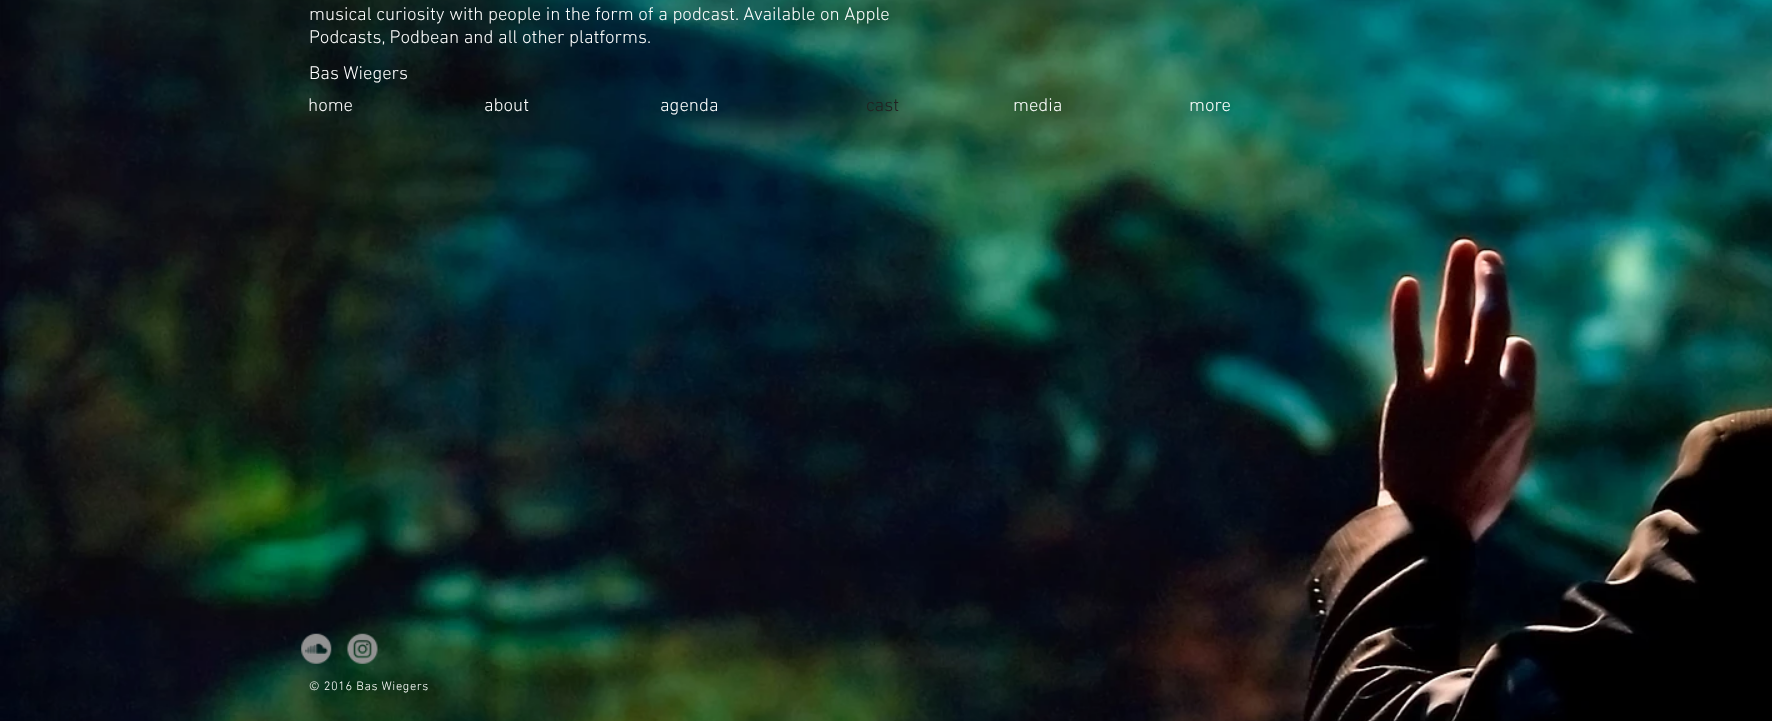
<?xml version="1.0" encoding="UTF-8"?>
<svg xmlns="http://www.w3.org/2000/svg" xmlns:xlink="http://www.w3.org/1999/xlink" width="1772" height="721">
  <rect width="100%" height="100%" fill="#ffffff" />
  <image x="0" y="0" width="1772" height="721" xlink:href="image1.png" />
  <image x="301" y="633" width="31" height="31" xlink:href="image2.png" />
  <image x="347" y="633" width="31" height="31" xlink:href="image3.png" />
  <text x="309" y="20" style="font-family: 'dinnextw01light'; font-size: 18.75px; font-weight: 300; fill: #ffffff">musical curiosity with people in the form of a podcast. Available on Apple</text>
  <text x="309" y="43" style="font-family: 'dinnextw01light'; font-size: 18.75px; font-weight: 300; fill: #ffffff">Podcasts, Podbean and all other platforms.</text>
  <text x="309" y="79" style="font-family: 'dinnextw01light'; font-size: 18.75px; font-weight: 300; fill: #ffffff">Bas Wiegers</text>
  <text x="308" y="111" style="font-family: 'dinnextw01light'; font-size: 18.75px; font-weight: 300; fill: #ffffff">home</text>
  <text x="484" y="111" style="font-family: 'dinnextw01light'; font-size: 18.75px; font-weight: 300; fill: #ffffff">about</text>
  <text x="660" y="111" style="font-family: 'dinnextw01light'; font-size: 18.75px; font-weight: 300; fill: #ffffff">agenda</text>
  <text x="866" y="111" style="font-family: 'dinnextw01light'; font-size: 18.75px; font-weight: 300; fill: #222222">cast</text>
  <text x="1013" y="111" style="font-family: 'dinnextw01light'; font-size: 18.75px; font-weight: 300; fill: #ffffff">media</text>
  <text x="1189" y="111" style="font-family: 'dinnextw01light'; font-size: 18.75px; font-weight: 300; fill: #ffffff">more</text>
  <text x="309" y="690" style="font-family: 'dinnextw01light'; font-size: 12.5px; font-weight: 300; letter-spacing: 0.6px; fill: #ffffff">© 2016 Bas Wiegers</text>
</svg>
